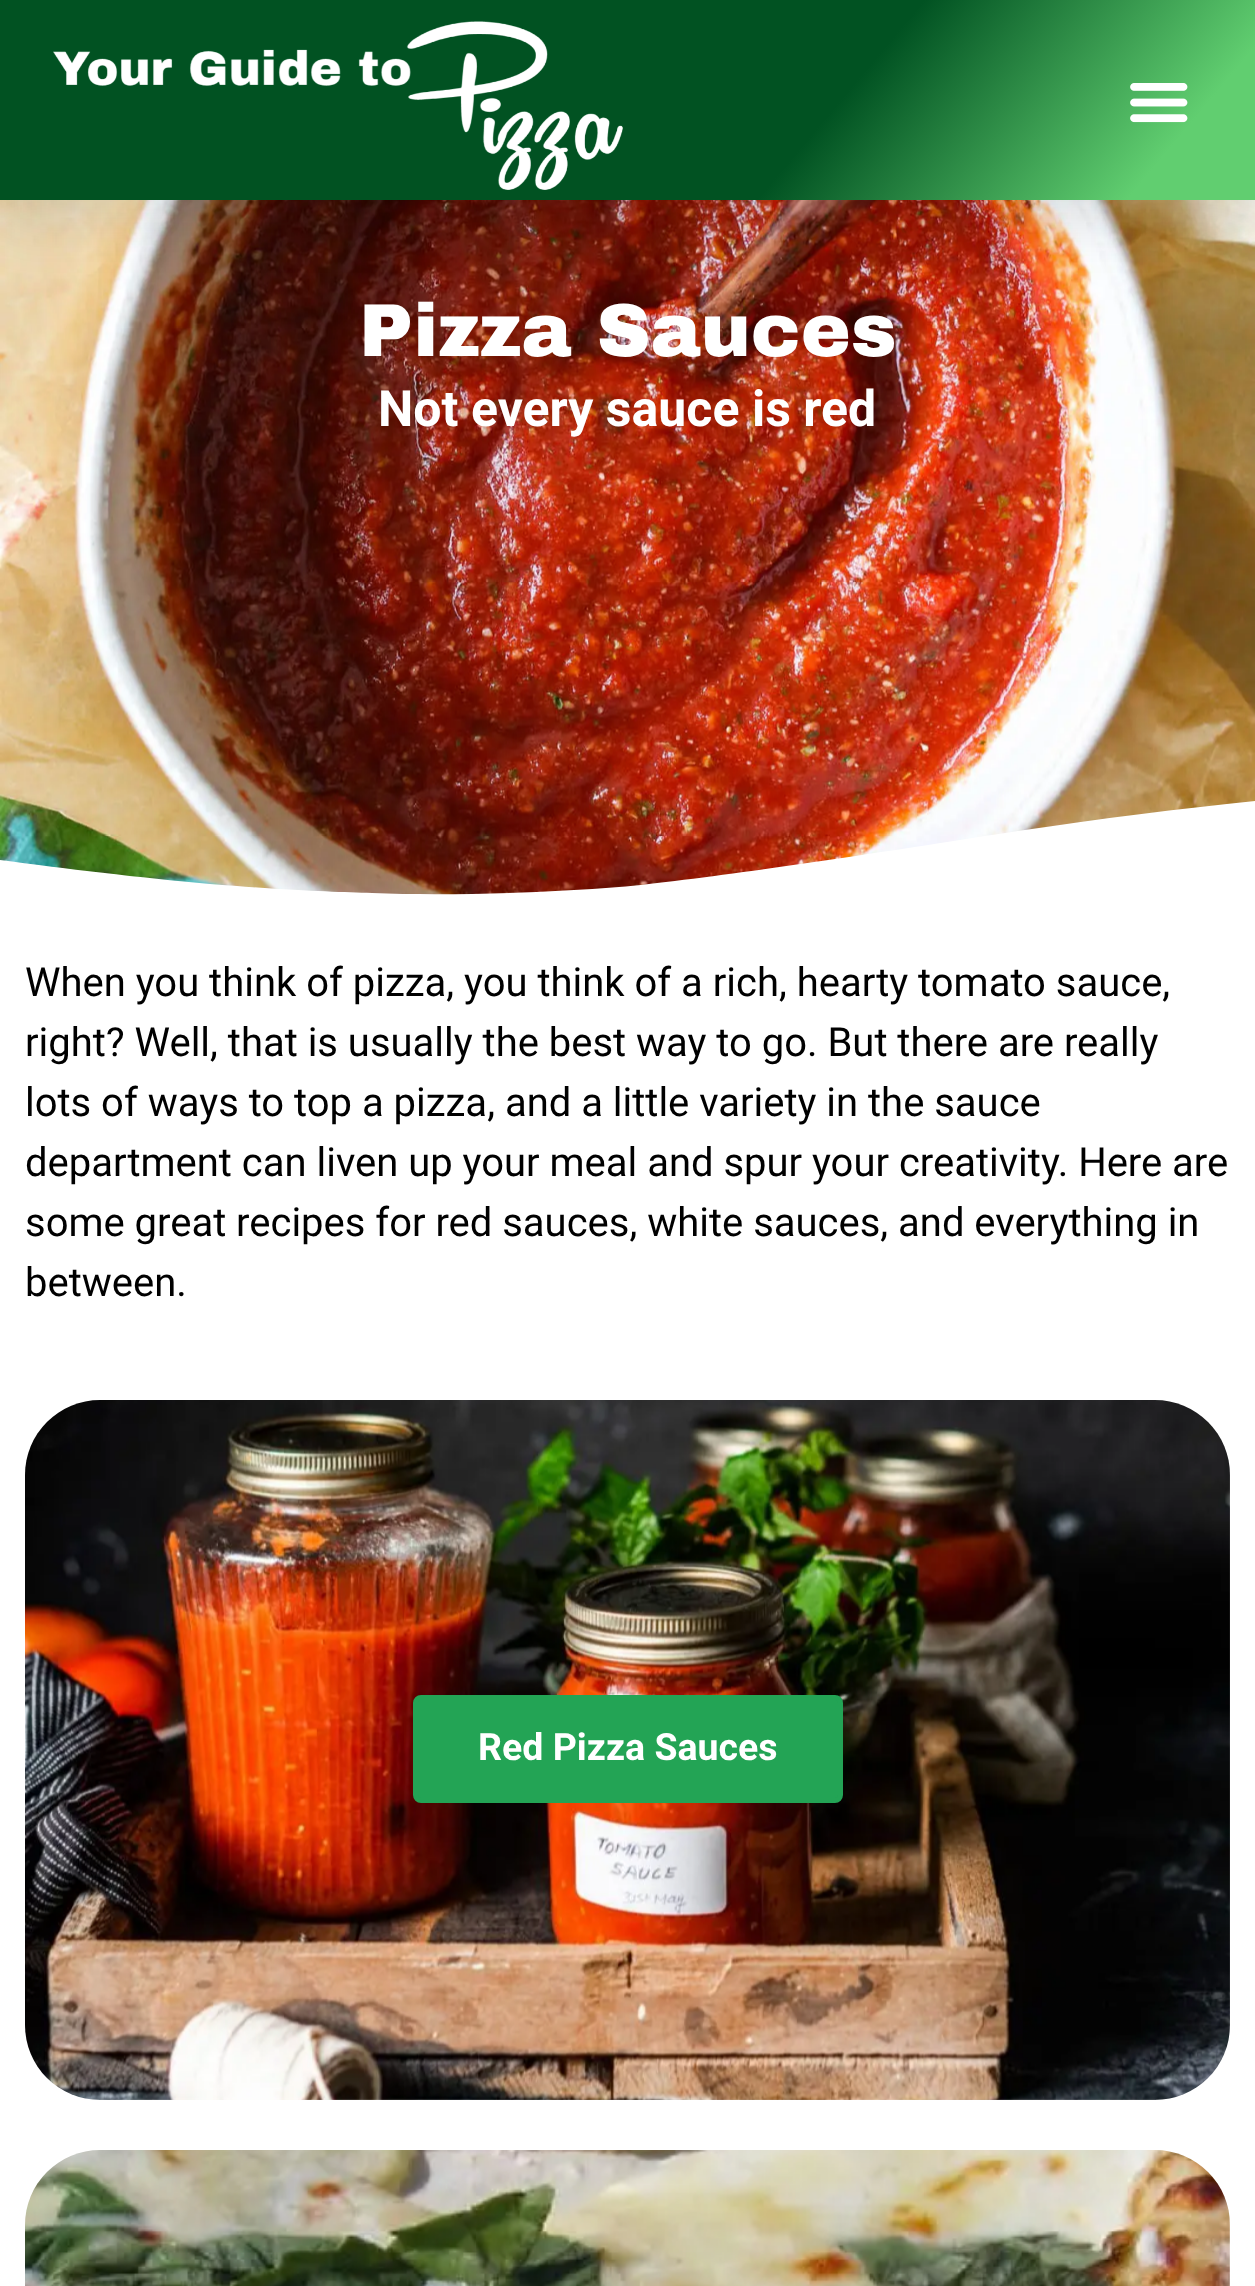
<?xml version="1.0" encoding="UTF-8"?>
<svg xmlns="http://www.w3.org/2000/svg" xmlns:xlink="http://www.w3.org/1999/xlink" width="1255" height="2286">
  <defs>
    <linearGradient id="g1" gradientUnits="userSpaceOnUse" x1="210" y1="-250" x2="1045" y2="450"><stop offset="0.65" stop-color="#015222" /><stop offset="0.91" stop-color="#61ce70" /></linearGradient>
    <clipPath id="clip1"><rect y="775" width="1255" height="125" /></clipPath>
  </defs>
  <rect width="100%" height="100%" fill="#ffffff" />
  <image x="0" y="200" width="1255" height="695" xlink:href="image3.png" />
  <rect y="25" width="1255" height="200" fill="#000000" fill-opacity="0.1" filter="blur(25px)" />
  <rect width="1255" height="200" fill="url(#g1)" />
  <image x="53" y="21" width="570" height="169" xlink:href="image1.png" />
  <image x="1130" y="83" width="58" height="40" xlink:href="image2.png" />
  <g clip-path="url(#clip1)">
    <path d="M 372 893 c 74 3 169 0 247 -6 c 77 -7 232 -30 328 -45 c 248 -40 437 -56 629 -62 c 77 -3 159 -5 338 3 c 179 7 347 32 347 32 v 86 h -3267 v -38 c 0 0 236 -40 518 -38 c 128 1 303 9 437 28 c 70 10 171 23 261 31 c 89 7 129 8 162 9 z" fill="#ffffff" />
  </g>
  <image x="25" y="1400" width="1205" height="700" xlink:href="image4.png" />
  <rect x="415.5" y="1697.5" width="425" height="103" rx="5.5" fill="#23a455" stroke="#23a455" stroke-width="5" />
  <image x="25" y="2150" width="1205" height="136" xlink:href="image5.png" />
  <text x="359" y="356" style="font-family: Archivo Black; font-size: 75px; font-weight: 900; fill: #ffffff">Pizza Sauces</text>
  <text x="378" y="426" style="font-family: Roboto; font-size: 50px; font-weight: bold; fill: #ffffff">Not every sauce is red</text>
  <text x="25" y="996" style="font-family: Roboto; font-size: 40px; fill: #000000">When you think of pizza, you think of a rich, hearty tomato sauce,</text>
  <text x="25" y="1056" style="font-family: Roboto; font-size: 40px; fill: #000000">right? Well, that is usually the best way to go. But there are really</text>
  <text x="25" y="1116" style="font-family: Roboto; font-size: 40px; fill: #000000">lots of ways to top a pizza, and a little variety in the sauce</text>
  <text x="25" y="1176" style="font-family: Roboto; font-size: 40px; fill: #000000">department can liven up your meal and spur your creativity. Here are</text>
  <text x="25" y="1236" style="font-family: Roboto; font-size: 40px; fill: #000000">some great recipes for red sauces, white sauces, and everything in</text>
  <text x="25" y="1296" style="font-family: Roboto; font-size: 40px; fill: #000000">between.</text>
  <text x="478" y="1760" style="font-family: Roboto; font-size: 37.5px; font-weight: bold; fill: #ffffff">Red Pizza Sauces</text>
</svg>
